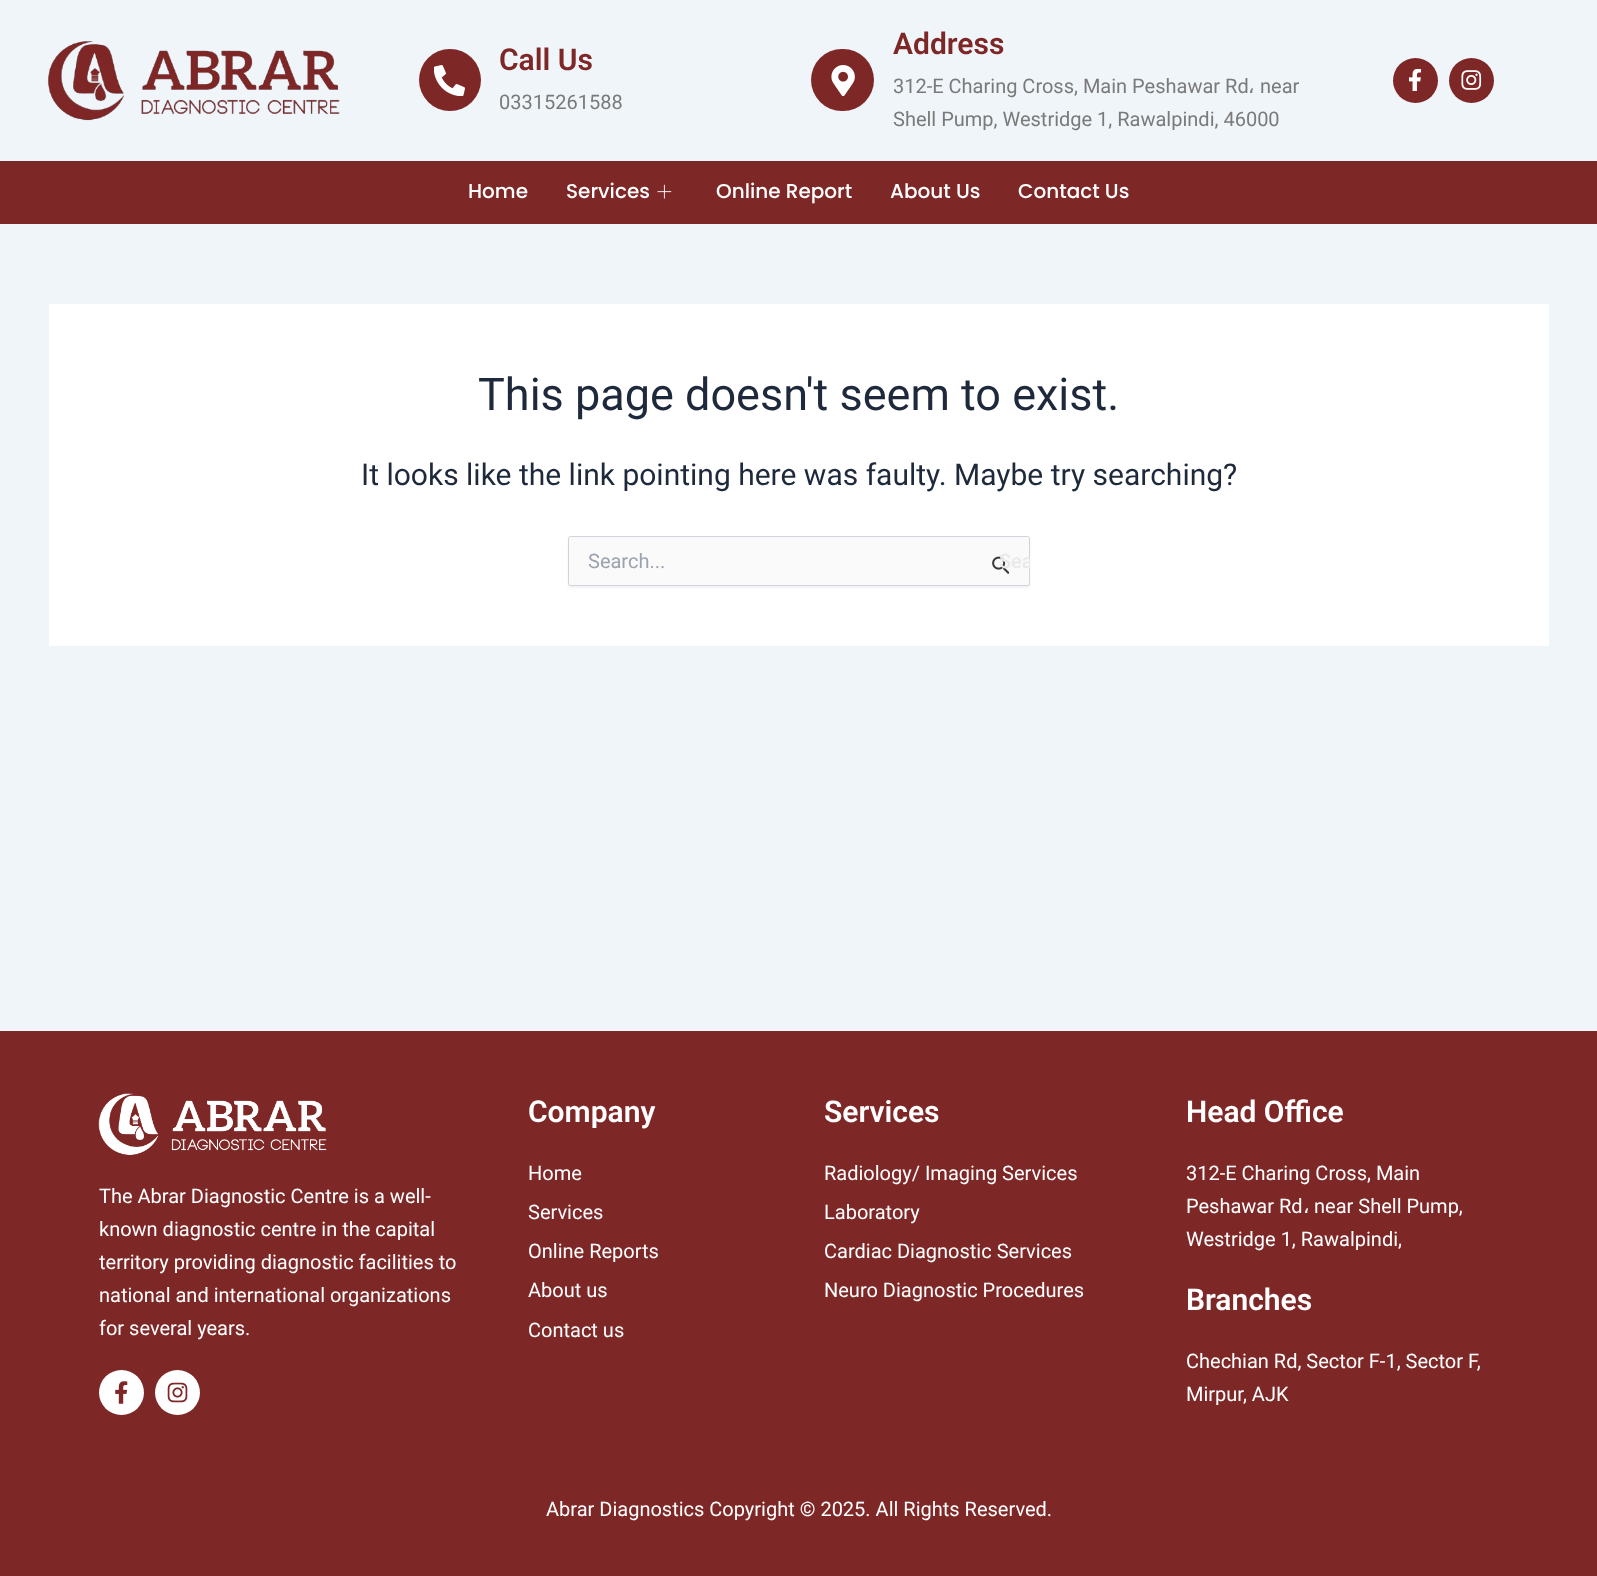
<?xml version="1.0" encoding="UTF-8"?>
<svg xmlns="http://www.w3.org/2000/svg" xmlns:xlink="http://www.w3.org/1999/xlink" width="1597" height="1576">
  <defs>
    <clipPath id="clip1"><rect x="974" y="536" width="56" height="53" rx="2.5" /></clipPath>
  </defs>
  <rect width="100%" height="100%" fill="#f0f5fa" />
  <image x="47" y="41" width="293" height="80" xlink:href="image1.png" />
  <circle cx="450" cy="80" r="31" fill="#7e2727" />
  <image x="434" y="65" width="31" height="31" xlink:href="image2.png" />
  <rect x="811" y="49" width="63" height="62" rx="31" fill="#7e2727" />
  <image x="831" y="65" width="24" height="31" xlink:href="image3.png" />
  <circle cx="1415.5" cy="80.5" r="22.5" fill="#7e2727" />
  <image x="1408" y="69" width="14" height="22" xlink:href="image4.png" />
  <circle cx="1471.5" cy="80.5" r="22.5" fill="#7e2727" />
  <image x="1461" y="70" width="21" height="20" xlink:href="image5.png" />
  <rect y="161" width="1597" height="63" fill="#7e2727" />
  <image x="657" y="184" width="15" height="15" xlink:href="image6.png" />
  <rect x="49" y="304" width="1500" height="342" fill="#ffffff" />
  <rect x="568" y="538" width="462" height="50" rx="2.5" fill="#000000" fill-opacity="0.05" filter="blur(1px)" />
  <rect x="568.5" y="536.5" width="461" height="49" rx="2" fill="#fafafa" stroke="#d1d5db" />
  <image x="992" y="556" width="17" height="18" xlink:href="image7.png" />
  <rect y="1031" width="1597" height="545" fill="#7e2727" />
  <image x="98" y="1093" width="229" height="62" xlink:href="image8.png" />
  <circle cx="121.5" cy="1392.5" r="22.5" fill="#ffffff" />
  <image x="115" y="1381" width="13" height="23" xlink:href="image9.png" />
  <circle cx="177.5" cy="1392.5" r="22.5" fill="#ffffff" />
  <image x="167" y="1382" width="21" height="21" xlink:href="image10.png" />
  <text x="499" y="70" style="font-family: Roboto; font-size: 30px; font-weight: 600; fill: #7e2727">Call Us</text>
  <text x="499" y="109" style="font-family: Roboto; font-size: 20px; fill: #7a7a7a">03315261588</text>
  <text x="893" y="54" style="font-family: Roboto; font-size: 30px; font-weight: 600; fill: #7e2727">Address</text>
  <text x="893" y="93" style="font-family: Roboto; font-size: 20px; fill: #7a7a7a">312-E Charing Cross, Main Peshawar Rd</text>
  <text x="1248" y="93" style="font-family: DejaVu Sans; font-size: 20px; fill: #7a7a7a">،</text>
  <text x="1260" y="93" style="font-family: Roboto; font-size: 20px; fill: #7a7a7a">near</text>
  <text x="893" y="126" style="font-family: Roboto; font-size: 20px; fill: #7a7a7a">Shell Pump, Westridge 1, Rawalpindi, 46000</text>
  <text x="468" y="198" style="font-family: Poppins; font-size: 20px; font-weight: 500; fill: #ffffff">Home</text>
  <text x="566" y="198" style="font-family: Poppins; font-size: 20px; font-weight: 500; fill: #ffffff">Services</text>
  <text x="716" y="198" style="font-family: Poppins; font-size: 20px; font-weight: 500; fill: #ffffff">Online Report</text>
  <text x="890" y="198" style="font-family: Poppins; font-size: 20px; font-weight: 500; fill: #ffffff">About Us</text>
  <text x="1018" y="198" style="font-family: Poppins; font-size: 20px; font-weight: 500; fill: #ffffff">Contact Us</text>
  <text x="478" y="410" style="font-family: Roboto; font-size: 45px; fill: #1e293b">This page doesn't seem to exist.</text>
  <text x="361" y="485" style="font-family: Roboto; font-size: 30px; fill: #1e293b">It looks like the link pointing here was faulty. Maybe try searching?</text>
  <text x="588" y="568" style="font-family: Roboto; font-size: 20px; fill: #9ca3af">Search...</text>
  <g clip-path="url(#clip1)">
    <text x="999" y="568" style="font-family: Roboto; font-size: 20px; font-weight: 500; fill: #e9e9ea">Sea</text>
  </g>
  <text x="99" y="1203" style="font-family: Roboto; font-size: 20px; fill: #ffffff">The Abrar Diagnostic Centre is a well-</text>
  <text x="99" y="1236" style="font-family: Roboto; font-size: 20px; fill: #ffffff">known diagnostic centre in the capital</text>
  <text x="99" y="1269" style="font-family: Roboto; font-size: 20px; fill: #ffffff">territory providing diagnostic facilities to</text>
  <text x="99" y="1302" style="font-family: Roboto; font-size: 20px; fill: #ffffff">national and international organizations</text>
  <text x="99" y="1335" style="font-family: Roboto; font-size: 20px; fill: #ffffff">for several years.</text>
  <text x="528" y="1122" style="font-family: Roboto; font-size: 30px; font-weight: 600; fill: #ffffff">Company</text>
  <text x="528" y="1180" style="font-family: Roboto; font-size: 20px; fill: #ffffff">Home</text>
  <text x="528" y="1219" style="font-family: Roboto; font-size: 20px; fill: #ffffff">Services</text>
  <text x="528" y="1258" style="font-family: Roboto; font-size: 20px; fill: #ffffff">Online Reports</text>
  <text x="528" y="1297" style="font-family: Roboto; font-size: 20px; fill: #ffffff">About us</text>
  <text x="528" y="1337" style="font-family: Roboto; font-size: 20px; fill: #ffffff">Contact us</text>
  <text x="824" y="1122" style="font-family: Roboto; font-size: 30px; font-weight: 600; fill: #ffffff">Services</text>
  <text x="824" y="1180" style="font-family: Roboto; font-size: 20px; fill: #ffffff">Radiology/ Imaging Services</text>
  <text x="824" y="1219" style="font-family: Roboto; font-size: 20px; fill: #ffffff">Laboratory</text>
  <text x="824" y="1258" style="font-family: Roboto; font-size: 20px; fill: #ffffff">Cardiac Diagnostic Services</text>
  <text x="824" y="1297" style="font-family: Roboto; font-size: 20px; fill: #ffffff">Neuro Diagnostic Procedures</text>
  <text x="1186" y="1122" style="font-family: Roboto; font-size: 30px; font-weight: 600; fill: #ffffff">Head Office</text>
  <text x="1186" y="1180" style="font-family: Roboto; font-size: 20px; fill: #ffffff">312-E Charing Cross, Main</text>
  <text x="1186" y="1213" style="font-family: Roboto; font-size: 20px; fill: #ffffff">Peshawar Rd</text>
  <text x="1303" y="1213" style="font-family: DejaVu Sans; font-size: 20px; fill: #ffffff">،</text>
  <text x="1314" y="1213" style="font-family: Roboto; font-size: 20px; fill: #ffffff">near Shell Pump,</text>
  <text x="1186" y="1246" style="font-family: Roboto; font-size: 20px; fill: #ffffff">Westridge 1, Rawalpindi,</text>
  <text x="1186" y="1310" style="font-family: Roboto; font-size: 30px; font-weight: 600; fill: #ffffff">Branches</text>
  <text x="1186" y="1368" style="font-family: Roboto; font-size: 20px; fill: #ffffff">Chechian Rd, Sector F-1, Sector F,</text>
  <text x="1186" y="1401" style="font-family: Roboto; font-size: 20px; fill: #ffffff">Mirpur, AJK</text>
  <text x="546" y="1516" style="font-family: Roboto; font-size: 20px; fill: #ffffff">Abrar Diagnostics Copyright © 2025. All Rights Reserved.</text>
</svg>
